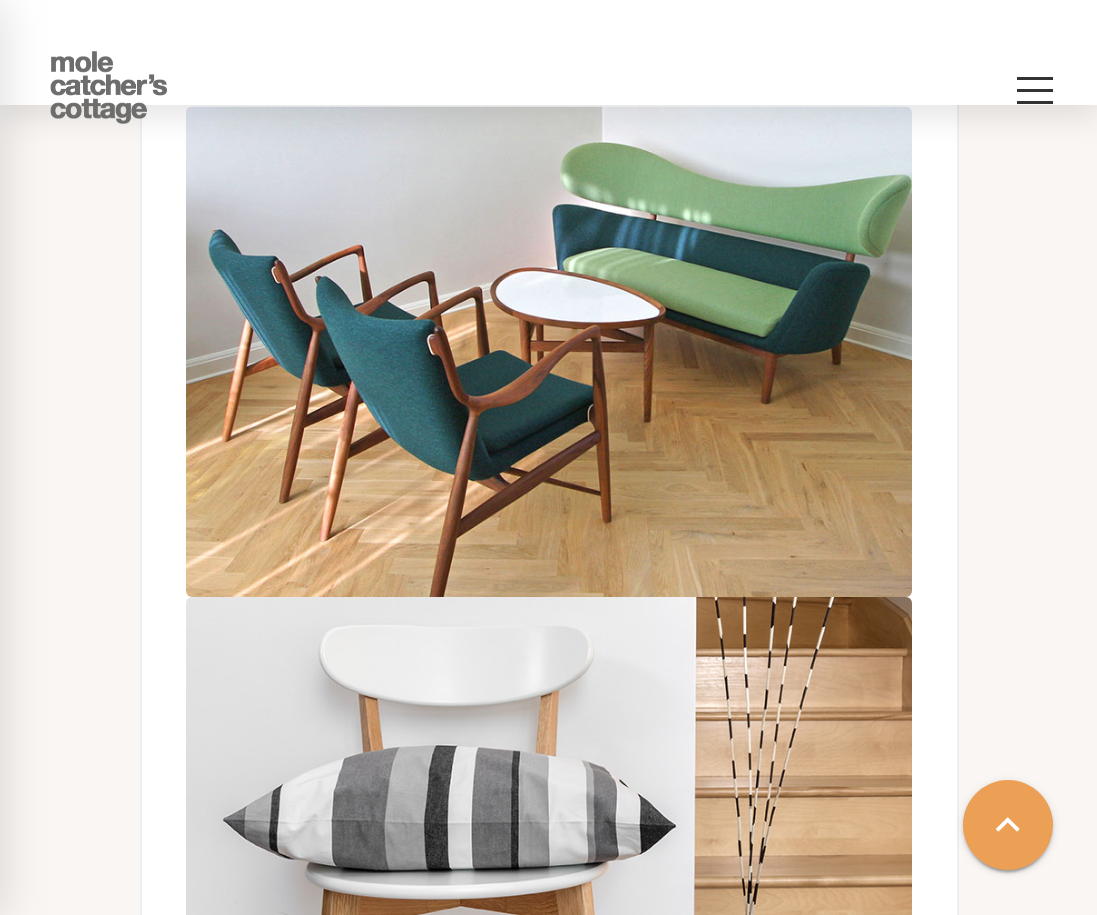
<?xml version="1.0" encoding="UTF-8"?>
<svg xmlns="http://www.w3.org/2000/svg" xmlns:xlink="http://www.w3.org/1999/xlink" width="1097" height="915">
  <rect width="100%" height="100%" fill="#f9f6f4" />
  <rect x="142" y="105" width="815" height="810" fill="#ffffff" />
  <rect x="141" y="-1" width="817" height="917" fill="none" stroke="#eeeeee" stroke-width="2" />
  <image x="186" y="106" width="726" height="491" xlink:href="image1.png" />
  <image x="186" y="597" width="726" height="318" xlink:href="image2.png" />
  <rect y="12" width="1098" height="105" fill="#000000" fill-opacity="0.1" filter="blur(15px)" />
  <rect width="1097" height="105" fill="#ffffff" />
  <image x="50" y="51" width="117" height="73" xlink:href="image3.png" />
  <rect x="1017" y="89" width="36" height="3" fill="#333333" />
  <rect x="1017" y="77" width="36" height="3" fill="#333333" />
  <rect x="1017" y="101" width="36" height="3" fill="#333333" />
  <rect x="-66" y="2" width="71" height="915" fill="#000000" fill-opacity="0.12" filter="blur(22px)" />
  <rect x="966" y="788" width="84" height="84" rx="42" fill="#000000" fill-opacity="0.2" filter="blur(1px)" />
  <rect x="963" y="782" width="90" height="90" rx="45" fill="#000000" fill-opacity="0.12" filter="blur(4px)" />
  <rect x="963" y="783" width="90" height="90" rx="45" fill="#000000" fill-opacity="0.14" filter="blur(1.5px)" />
  <circle cx="1008" cy="825" r="45" fill="#eba056" />
  <image x="996" y="817" width="24" height="15" xlink:href="image4.png" />
</svg>
